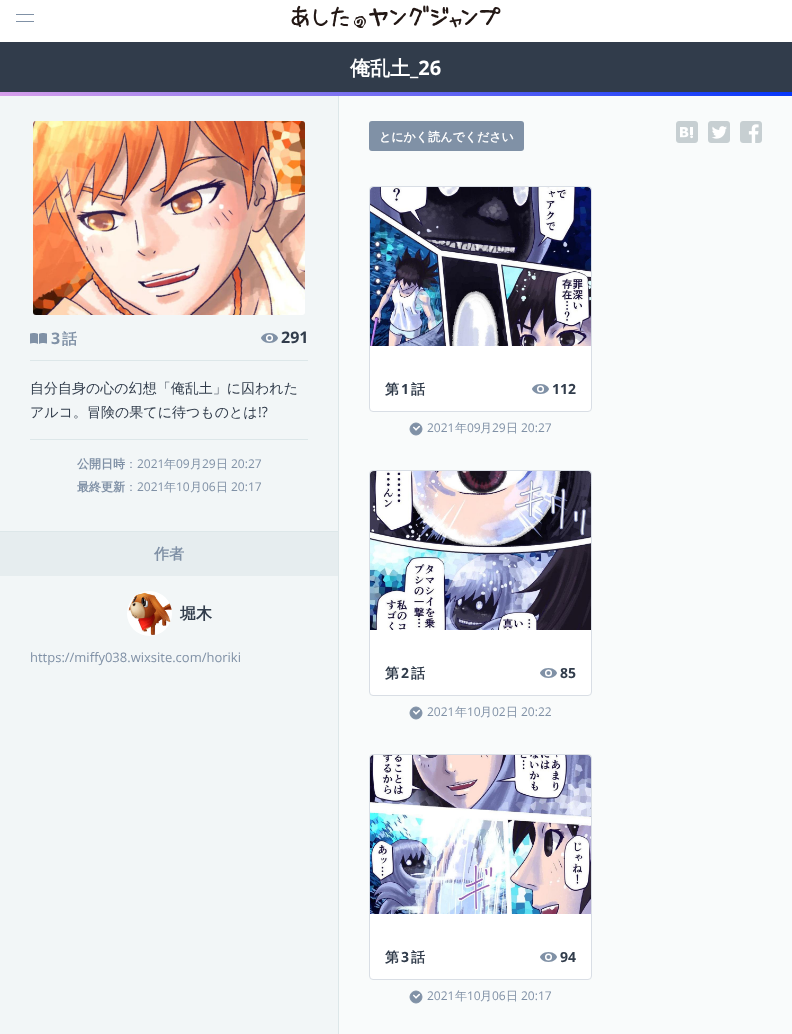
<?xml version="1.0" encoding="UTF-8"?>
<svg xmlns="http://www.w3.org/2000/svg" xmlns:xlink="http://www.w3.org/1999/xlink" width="792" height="1034">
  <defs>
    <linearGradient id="g1" gradientUnits="userSpaceOnUse" x1="384" y1="164" x2="408" y2="24"><stop offset="0" stop-color="#dda2ea" /><stop offset="1" stop-color="#0034fa" /></linearGradient>
  </defs>
  <rect width="100%" height="100%" fill="#ffffff" />
  <rect x="16" y="14" width="18" height="1" fill="#8091a6" />
  <rect x="16" y="21" width="18" height="1" fill="#8091a6" />
  <image x="291" y="5" width="210" height="23" xlink:href="image1.png" />
  <rect y="42" width="792" height="50" fill="#313c4b" />
  <rect y="92" width="792" height="4" fill="url(#g1)" />
  <rect y="96" width="338" height="938" fill="#f2f6f7" />
  <image x="33" y="121" width="272" height="194" xlink:href="image2.png" />
  <image x="30" y="333" width="17" height="11" xlink:href="image3.png" />
  <image x="261" y="333" width="17" height="10" xlink:href="image4.png" />
  <rect x="30" y="360" width="278" height="1" fill="#dde7e9" />
  <rect x="30" y="439" width="278" height="1" fill="#dde7e9" />
  <rect x="339" y="96" width="453" height="938" fill="#f9fbfb" />
  <rect x="338" y="96" width="1" height="938" fill="#dde7e9" />
  <rect x="369" y="121" width="155" height="30" rx="3" fill="#8091a6" />
  <image x="676" y="121" width="22" height="22" xlink:href="image5.png" />
  <image x="708" y="121" width="22" height="22" xlink:href="image6.png" />
  <image x="740" y="121" width="22" height="22" xlink:href="image7.png" />
  <rect x="369.5" y="186.5" width="222" height="225" rx="3.5" fill="#ffffff" stroke="#d9dee5" />
  <image x="370" y="187" width="221" height="159" xlink:href="image8.png" />
  <image x="532" y="384" width="17" height="10" xlink:href="image9.png" />
  <image x="409" y="422" width="14" height="14" xlink:href="image10.png" />
  <rect x="369.5" y="470.5" width="222" height="225" rx="3.5" fill="#ffffff" stroke="#d9dee5" />
  <image x="370" y="471" width="221" height="159" xlink:href="image11.png" />
  <image x="540" y="668" width="17" height="10" xlink:href="image9.png" />
  <image x="409" y="706" width="14" height="14" xlink:href="image10.png" />
  <rect x="369.5" y="754.5" width="222" height="225" rx="3.5" fill="#ffffff" stroke="#d9dee5" />
  <image x="370" y="755" width="221" height="159" xlink:href="image12.png" />
  <image x="540" y="952" width="17" height="10" xlink:href="image9.png" />
  <image x="409" y="990" width="14" height="14" xlink:href="image10.png" />
  <rect y="531" width="338" height="1" fill="#dde7e9" />
  <rect y="532" width="338" height="44" fill="#e6edef" />
  <image x="127" y="591" width="45" height="45" xlink:href="image13.png" />
  <text x="350" y="75" style="font-family: WenQuanYi Zen Hei; font-size: 20px; font-weight: bold; fill: #ffffff">俺乱土</text>
  <text x="410" y="75" style="font-family: Open Sans; font-size: 20px; font-weight: bold; fill: #ffffff">_26</text>
  <text x="51" y="344" style="font-family: Open Sans; font-size: 16px; font-weight: bold; fill: #8091a6">3</text>
  <text x="62" y="344" style="font-family: WenQuanYi Zen Hei; font-size: 15px; font-weight: bold; fill: #8091a6">話</text>
  <text x="281" y="343" style="font-family: Open Sans; font-size: 16px; font-weight: bold; fill: #313c4b">291</text>
  <text x="30" y="393" style="font-family: WenQuanYi Zen Hei; font-size: 14px; font-weight: 500; fill: #313c4b">自分自身の心の幻想「俺乱土」に囚われた</text>
  <text x="30" y="417" style="font-family: WenQuanYi Zen Hei; font-size: 14px; font-weight: 500; fill: #313c4b">アルコ。冒険の果てに待つものとは</text>
  <text x="258" y="417" style="font-family: Open Sans; font-size: 14px; fill: #313c4b">!?</text>
  <text x="77" y="468" style="font-family: WenQuanYi Zen Hei; font-size: 12px; font-weight: bold; fill: #8091a6">公開日時</text>
  <text x="125" y="468" style="font-family: WenQuanYi Zen Hei; font-size: 12px; font-weight: 500; fill: #8091a6">：</text>
  <text x="137" y="468" style="font-family: Open Sans; font-size: 12px; fill: #8091a6">2021</text>
  <text x="164" y="468" style="font-family: WenQuanYi Zen Hei; font-size: 12px; font-weight: 500; fill: #8091a6">年</text>
  <text x="176" y="468" style="font-family: Open Sans; font-size: 12px; fill: #8091a6">09</text>
  <text x="190" y="468" style="font-family: WenQuanYi Zen Hei; font-size: 12px; font-weight: 500; fill: #8091a6">月</text>
  <text x="202" y="468" style="font-family: Open Sans; font-size: 12px; fill: #8091a6">29</text>
  <text x="216" y="468" style="font-family: WenQuanYi Zen Hei; font-size: 12px; font-weight: 500; fill: #8091a6">日</text>
  <text x="231" y="468" style="font-family: Open Sans; font-size: 12px; fill: #8091a6">20:27</text>
  <text x="77" y="491" style="font-family: WenQuanYi Zen Hei; font-size: 12px; font-weight: bold; fill: #8091a6">最終更新</text>
  <text x="125" y="491" style="font-family: WenQuanYi Zen Hei; font-size: 12px; font-weight: 500; fill: #8091a6">：</text>
  <text x="137" y="491" style="font-family: Open Sans; font-size: 12px; fill: #8091a6">2021</text>
  <text x="164" y="491" style="font-family: WenQuanYi Zen Hei; font-size: 12px; font-weight: 500; fill: #8091a6">年</text>
  <text x="176" y="491" style="font-family: Open Sans; font-size: 12px; fill: #8091a6">10</text>
  <text x="190" y="491" style="font-family: WenQuanYi Zen Hei; font-size: 12px; font-weight: 500; fill: #8091a6">月</text>
  <text x="202" y="491" style="font-family: Open Sans; font-size: 12px; fill: #8091a6">06</text>
  <text x="216" y="491" style="font-family: WenQuanYi Zen Hei; font-size: 12px; font-weight: 500; fill: #8091a6">日</text>
  <text x="231" y="491" style="font-family: Open Sans; font-size: 12px; fill: #8091a6">20:17</text>
  <text x="379" y="141" style="font-family: WenQuanYi Zen Hei; font-size: 12px; font-weight: bold; fill: #ffffff">とにかく読んでください</text>
  <text x="385" y="394" style="font-family: WenQuanYi Zen Hei; font-size: 14px; font-weight: bold; fill: #313c4b">第</text>
  <text x="401" y="394" style="font-family: Open Sans; font-size: 14px; font-weight: bold; fill: #313c4b">1</text>
  <text x="411" y="394" style="font-family: WenQuanYi Zen Hei; font-size: 14px; font-weight: bold; fill: #313c4b">話</text>
  <text x="552" y="394" style="font-family: Open Sans; font-size: 14px; font-weight: bold; fill: #313c4b">112</text>
  <text x="427" y="432" style="font-family: Open Sans; font-size: 12px; fill: #8091a6">2021</text>
  <text x="455" y="432" style="font-family: WenQuanYi Zen Hei; font-size: 12px; font-weight: 500; fill: #8091a6">年</text>
  <text x="467" y="432" style="font-family: Open Sans; font-size: 12px; fill: #8091a6">09</text>
  <text x="480" y="432" style="font-family: WenQuanYi Zen Hei; font-size: 12px; font-weight: 500; fill: #8091a6">月</text>
  <text x="492" y="432" style="font-family: Open Sans; font-size: 12px; fill: #8091a6">29</text>
  <text x="506" y="432" style="font-family: WenQuanYi Zen Hei; font-size: 12px; font-weight: 500; fill: #8091a6">日</text>
  <text x="521" y="432" style="font-family: Open Sans; font-size: 12px; fill: #8091a6">20:27</text>
  <text x="385" y="678" style="font-family: WenQuanYi Zen Hei; font-size: 14px; font-weight: bold; fill: #313c4b">第</text>
  <text x="401" y="678" style="font-family: Open Sans; font-size: 14px; font-weight: bold; fill: #313c4b">2</text>
  <text x="411" y="678" style="font-family: WenQuanYi Zen Hei; font-size: 14px; font-weight: bold; fill: #313c4b">話</text>
  <text x="560" y="678" style="font-family: Open Sans; font-size: 14px; font-weight: bold; fill: #313c4b">85</text>
  <text x="427" y="716" style="font-family: Open Sans; font-size: 12px; fill: #8091a6">2021</text>
  <text x="455" y="716" style="font-family: WenQuanYi Zen Hei; font-size: 12px; font-weight: 500; fill: #8091a6">年</text>
  <text x="467" y="716" style="font-family: Open Sans; font-size: 12px; fill: #8091a6">10</text>
  <text x="480" y="716" style="font-family: WenQuanYi Zen Hei; font-size: 12px; font-weight: 500; fill: #8091a6">月</text>
  <text x="492" y="716" style="font-family: Open Sans; font-size: 12px; fill: #8091a6">02</text>
  <text x="506" y="716" style="font-family: WenQuanYi Zen Hei; font-size: 12px; font-weight: 500; fill: #8091a6">日</text>
  <text x="521" y="716" style="font-family: Open Sans; font-size: 12px; fill: #8091a6">20:22</text>
  <text x="385" y="962" style="font-family: WenQuanYi Zen Hei; font-size: 14px; font-weight: bold; fill: #313c4b">第</text>
  <text x="401" y="962" style="font-family: Open Sans; font-size: 14px; font-weight: bold; fill: #313c4b">3</text>
  <text x="411" y="962" style="font-family: WenQuanYi Zen Hei; font-size: 14px; font-weight: bold; fill: #313c4b">話</text>
  <text x="560" y="962" style="font-family: Open Sans; font-size: 14px; font-weight: bold; fill: #313c4b">94</text>
  <text x="427" y="1000" style="font-family: Open Sans; font-size: 12px; fill: #8091a6">2021</text>
  <text x="455" y="1000" style="font-family: WenQuanYi Zen Hei; font-size: 12px; font-weight: 500; fill: #8091a6">年</text>
  <text x="467" y="1000" style="font-family: Open Sans; font-size: 12px; fill: #8091a6">10</text>
  <text x="480" y="1000" style="font-family: WenQuanYi Zen Hei; font-size: 12px; font-weight: 500; fill: #8091a6">月</text>
  <text x="492" y="1000" style="font-family: Open Sans; font-size: 12px; fill: #8091a6">06</text>
  <text x="506" y="1000" style="font-family: WenQuanYi Zen Hei; font-size: 12px; font-weight: 500; fill: #8091a6">日</text>
  <text x="521" y="1000" style="font-family: Open Sans; font-size: 12px; fill: #8091a6">20:17</text>
  <text x="154" y="559" style="font-family: WenQuanYi Zen Hei; font-size: 15px; font-weight: bold; fill: #8091a6">作者</text>
  <text x="180" y="619" style="font-family: WenQuanYi Zen Hei; font-size: 16px; font-weight: bold; fill: #313c4b">堀木</text>
  <text x="30" y="662" style="font-family: Open Sans; font-size: 13px; fill: #8091a6">https://miffy038.wixsite.com/horiki</text>
</svg>
